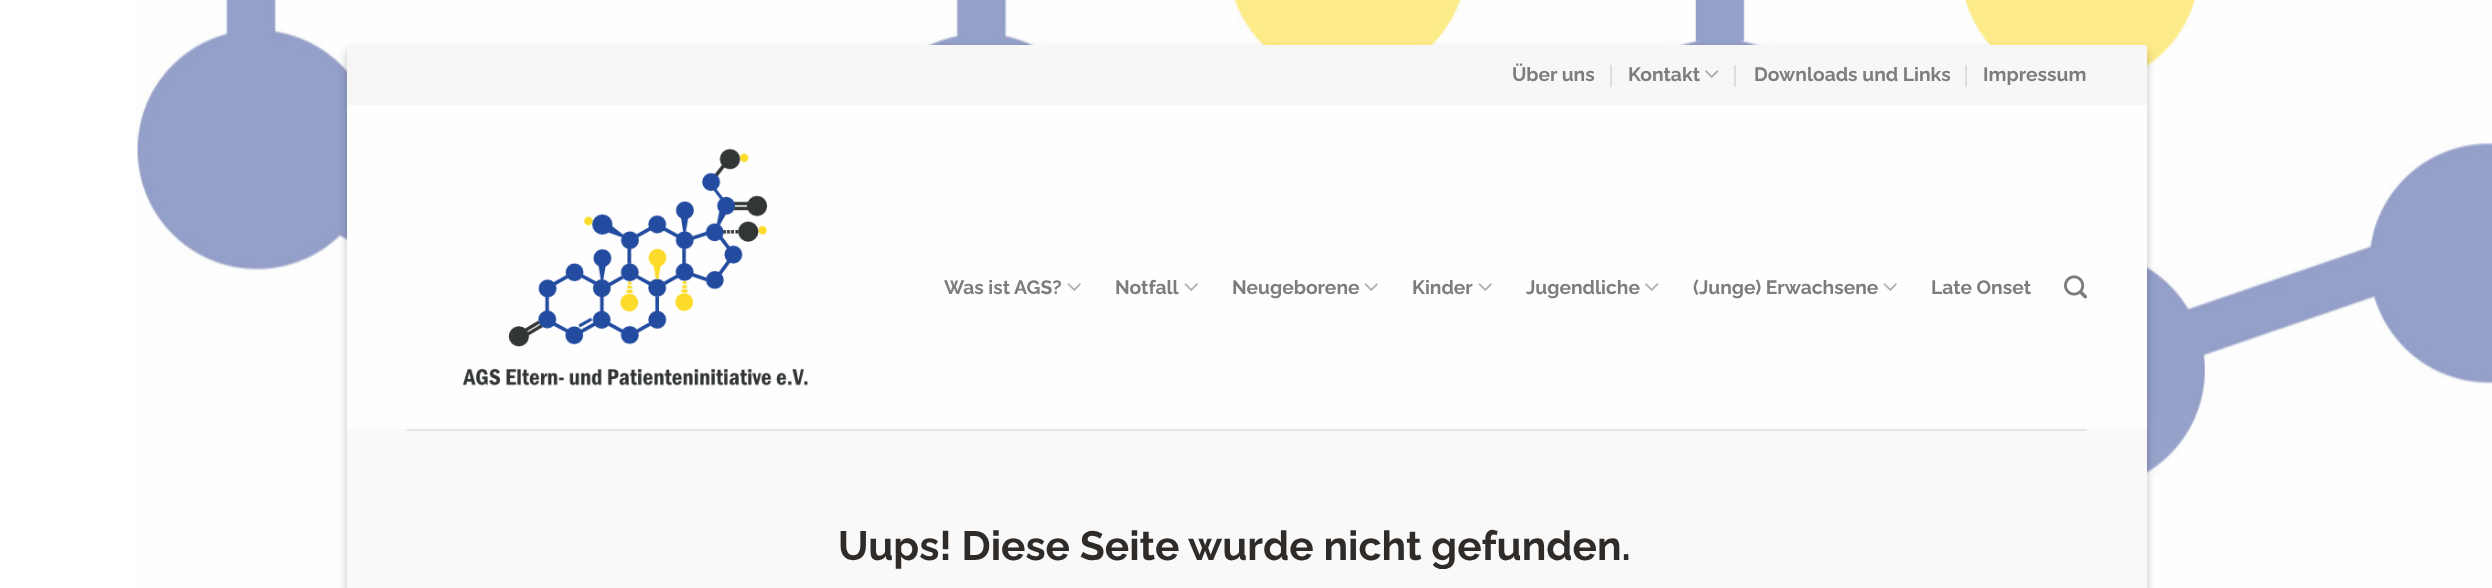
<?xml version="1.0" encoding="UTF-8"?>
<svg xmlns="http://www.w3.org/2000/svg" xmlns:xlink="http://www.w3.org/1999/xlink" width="2492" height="588">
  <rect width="100%" height="100%" fill="#ffffff" />
  <image x="135" y="0" width="2357" height="588" xlink:href="image1.png" />
  <rect x="347" y="50" width="1800" height="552" fill="#000000" fill-opacity="0.23" filter="blur(4.5px)" />
  <rect x="347" y="429" width="1800" height="159" fill="#f9f9f9" />
  <rect x="347" y="45" width="1800" height="60" fill="#f7f7f7" />
  <rect x="1610" y="65" width="2" height="22" fill="#dedede" />
  <image x="1705" y="70" width="14" height="8" xlink:href="image2.png" />
  <rect x="1734" y="65" width="2" height="22" fill="#dedede" />
  <rect x="1965" y="65" width="2" height="22" fill="#dedede" />
  <rect x="347" y="105" width="1800" height="324" fill="#fefefe" />
  <image x="462" y="148" width="347" height="238" xlink:href="image3.png" />
  <image x="1067" y="283" width="14" height="8" xlink:href="image4.png" />
  <image x="1184" y="283" width="14" height="8" xlink:href="image4.png" />
  <image x="1364" y="283" width="14" height="8" xlink:href="image4.png" />
  <image x="1478" y="283" width="14" height="8" xlink:href="image4.png" />
  <image x="1645" y="283" width="14" height="8" xlink:href="image5.png" />
  <image x="1883" y="283" width="14" height="8" xlink:href="image4.png" />
  <image x="2064" y="275" width="23" height="24" xlink:href="image6.png" />
  <rect x="407" y="429" width="1680" height="2" fill="#e5e4e4" />
  <text x="1512" y="81" style="font-family: Raleway; font-size: 19.25px; font-weight: bold; fill: #7d7d7d">Über uns</text>
  <text x="1628" y="81" style="font-family: Raleway; font-size: 19.25px; font-weight: bold; fill: #7d7d7d">Kontakt</text>
  <text x="1754" y="81" style="font-family: Raleway; font-size: 19.25px; font-weight: bold; fill: #7d7d7d">Downloads und Links</text>
  <text x="1983" y="81" style="font-family: Raleway; font-size: 19.25px; font-weight: bold; fill: #7d7d7d">Impressum</text>
  <text x="944" y="294" style="font-family: Raleway; font-size: 19.25px; font-weight: bold; fill: #7d7d7d">Was ist AGS?</text>
  <text x="1115" y="294" style="font-family: Raleway; font-size: 19.25px; font-weight: bold; fill: #7d7d7d">Notfall</text>
  <text x="1232" y="294" style="font-family: Raleway; font-size: 19.25px; font-weight: bold; fill: #7d7d7d">Neugeborene</text>
  <text x="1412" y="294" style="font-family: Raleway; font-size: 19.25px; font-weight: bold; fill: #7d7d7d">Kinder</text>
  <text x="1526" y="294" style="font-family: Raleway; font-size: 19.25px; font-weight: bold; fill: #7d7d7d">Jugendliche</text>
  <text x="1693" y="294" style="font-family: Raleway; font-size: 19.25px; font-weight: bold; fill: #7d7d7d">(Junge) Erwachsene</text>
  <text x="1931" y="294" style="font-family: Raleway; font-size: 19.25px; font-weight: bold; fill: #7d7d7d">Late Onset</text>
  <text x="838" y="560" style="font-family: Raleway; font-size: 40.75px; font-weight: bold; fill: #2f2b28">Uups! Diese Seite wurde nicht gefunden.</text>
</svg>
